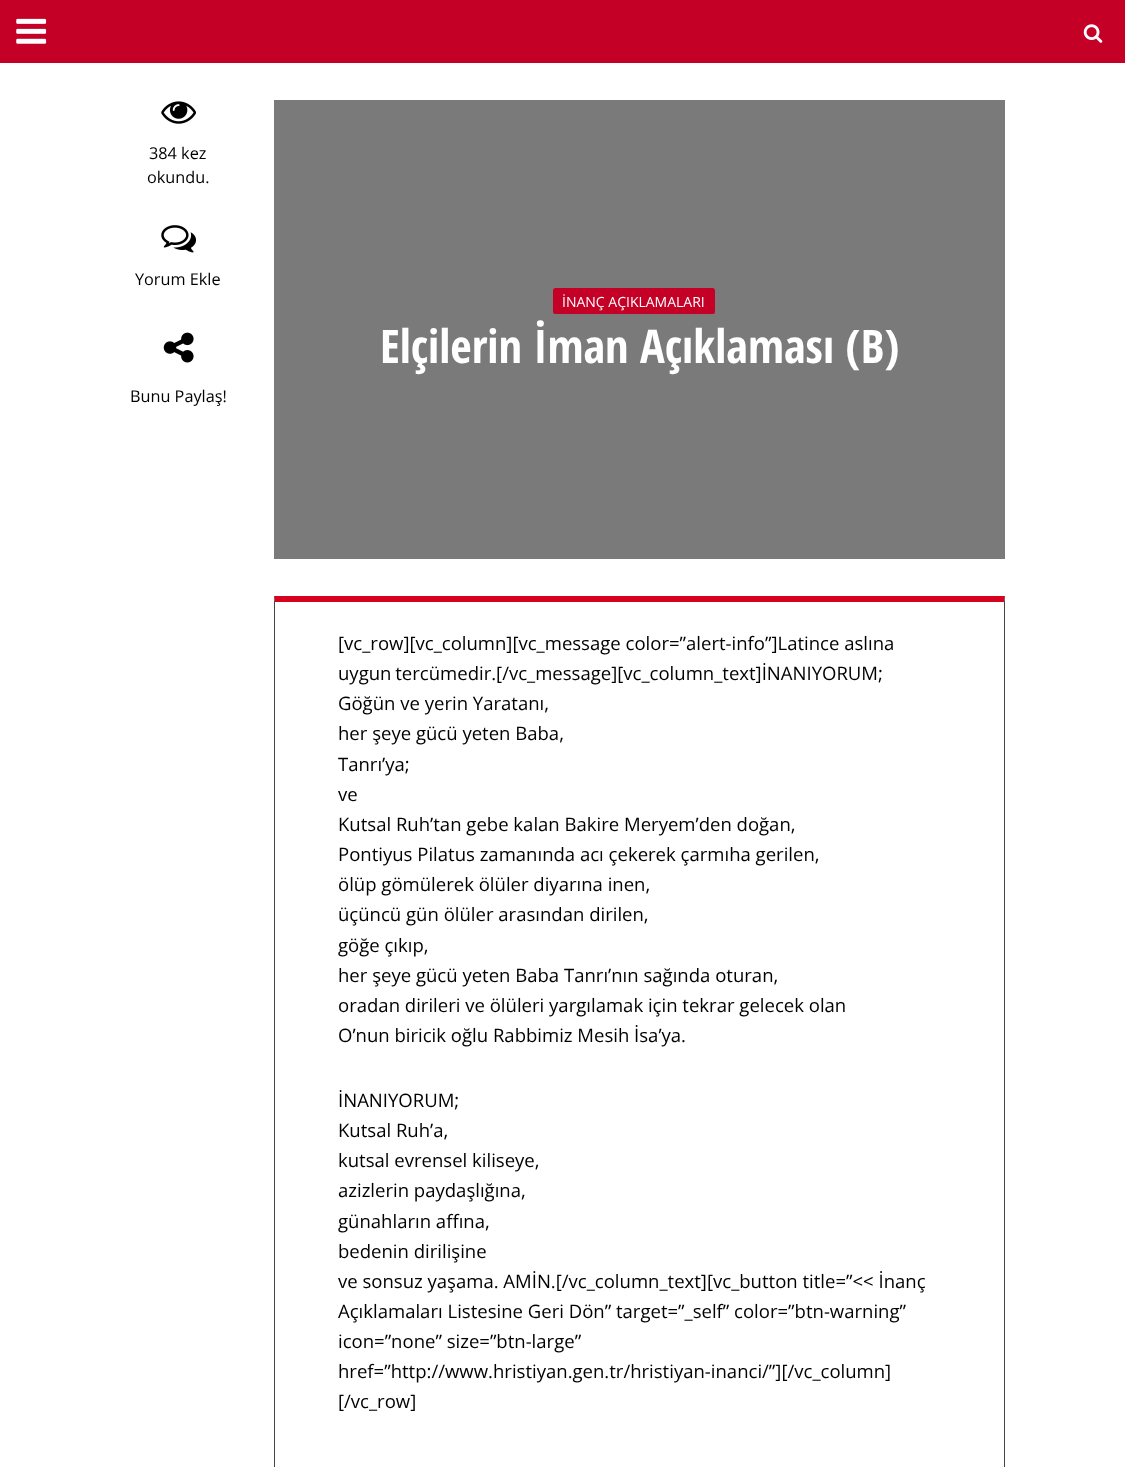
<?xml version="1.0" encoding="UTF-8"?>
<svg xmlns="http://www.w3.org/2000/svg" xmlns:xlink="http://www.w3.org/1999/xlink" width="1125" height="1467">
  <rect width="100%" height="100%" fill="#ffffff" />
  <rect width="1125" height="63" fill="#c50026" />
  <image x="16" y="18" width="31" height="26" xlink:href="image1.png" />
  <image x="1083" y="24" width="20" height="19" xlink:href="image2.png" />
  <image x="161" y="101" width="35" height="23" xlink:href="image3.png" />
  <image x="161" y="225" width="35" height="28" xlink:href="image4.png" />
  <image x="163" y="332" width="31" height="31" xlink:href="image5.png" />
  <rect x="274" y="100" width="731" height="459" fill="#7a7a7a" />
  <rect x="553" y="288" width="162" height="26" rx="2.5" fill="#c50026" />
  <path d="M 274 596 h 731 l -1 6 h -729 z" fill="#d6021f" />
  <path d="M 1005 596 v 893 l -1 -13 v -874 z" fill="#444444" />
  <path d="M 274 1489 v -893 l 1 6 v 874 z" fill="#444444" />
  <text x="149" y="159" style="font-family: Open Sans; font-size: 16.25px; fill: #000000">384 kez</text>
  <text x="147" y="183" style="font-family: Open Sans; font-size: 16.25px; fill: #000000">okundu.</text>
  <text x="135" y="285" style="font-family: Open Sans; font-size: 16.25px; fill: #000000">Yorum Ekle</text>
  <text x="130" y="402" style="font-family: Open Sans; font-size: 16.25px; fill: #000000">Bunu Paylaş!</text>
  <text x="562" y="307" style="font-family: Open Sans; font-size: 14px; fill: #ffffff">İNANÇ AÇIKLAMALARI</text>
  <text x="380" y="363" style="font-family: Open Sans Condensed; font-size: 46.4px; font-weight: bold; fill: #ffffff">Elçilerin İman Açıklaması (B)</text>
  <text x="338" y="650" style="font-family: Open Sans; font-size: 18.55px; fill: #000000">[vc_row][vc_column][vc_message color=”alert-info”]Latince aslına</text>
  <text x="338" y="680" word-spacing="-1" style="font-family: Open Sans; font-size: 18.55px; fill: #000000">uygun tercümedir.[/vc_message][vc_column_text]İNANIYORUM;</text>
  <text x="338" y="710" style="font-family: Open Sans; font-size: 18.55px; fill: #000000">Göğün ve yerin Yaratanı,</text>
  <text x="338" y="740" style="font-family: Open Sans; font-size: 18.55px; fill: #000000">her şeye gücü yeten Baba,</text>
  <text x="338" y="771" style="font-family: Open Sans; font-size: 18.55px; fill: #000000">Tanrı’ya;</text>
  <text x="338" y="801" style="font-family: Open Sans; font-size: 18.55px; fill: #000000">ve</text>
  <text x="338" y="831" style="font-family: Open Sans; font-size: 18.55px; fill: #000000">Kutsal Ruh’tan gebe kalan Bakire Meryem’den doğan,</text>
  <text x="338" y="861" style="font-family: Open Sans; font-size: 18.55px; fill: #000000">Pontiyus Pilatus zamanında acı çekerek çarmıha gerilen,</text>
  <text x="338" y="891" style="font-family: Open Sans; font-size: 18.55px; fill: #000000">ölüp gömülerek ölüler diyarına inen,</text>
  <text x="338" y="921" style="font-family: Open Sans; font-size: 18.55px; fill: #000000">üçüncü gün ölüler arasından dirilen,</text>
  <text x="338" y="952" style="font-family: Open Sans; font-size: 18.55px; fill: #000000">göğe çıkıp,</text>
  <text x="338" y="982" style="font-family: Open Sans; font-size: 18.55px; fill: #000000">her şeye gücü yeten Baba Tanrı’nın sağında oturan,</text>
  <text x="338" y="1012" style="font-family: Open Sans; font-size: 18.55px; fill: #000000">oradan dirileri ve ölüleri yargılamak için tekrar gelecek olan</text>
  <text x="338" y="1042" style="font-family: Open Sans; font-size: 18.55px; fill: #000000">O’nun biricik oğlu Rabbimiz Mesih İsa’ya.</text>
  <text x="338" y="1107" style="font-family: Open Sans; font-size: 18.55px; fill: #000000">İNANIYORUM;</text>
  <text x="338" y="1137" style="font-family: Open Sans; font-size: 18.55px; fill: #000000">Kutsal Ruh’a,</text>
  <text x="338" y="1167" style="font-family: Open Sans; font-size: 18.55px; fill: #000000">kutsal evrensel kiliseye,</text>
  <text x="338" y="1197" style="font-family: Open Sans; font-size: 18.55px; fill: #000000">azizlerin paydaşlığına,</text>
  <text x="338" y="1228" style="font-family: Open Sans; font-size: 18.55px; fill: #000000">günahların affına,</text>
  <text x="338" y="1258" style="font-family: Open Sans; font-size: 18.55px; fill: #000000">bedenin dirilişine</text>
  <text x="338" y="1288" style="font-family: Open Sans; font-size: 18.55px; fill: #000000">ve sonsuz yaşama. AMİN.[/vc_column_text][vc_button title=”&lt;&lt; İnanç</text>
  <text x="338" y="1318" style="font-family: Open Sans; font-size: 18.55px; fill: #000000">Açıklamaları Listesine Geri Dön” target=”_self” color=”btn-warning”</text>
  <text x="338" y="1348" style="font-family: Open Sans; font-size: 18.55px; fill: #000000">icon=”none” size=”btn-large”</text>
  <text x="338" y="1378" style="font-family: Open Sans; font-size: 18.55px; fill: #000000">href=”http://www.hristiyan.gen.tr/hristiyan-inanci/”][/vc_column]</text>
  <text x="338" y="1408" style="font-family: Open Sans; font-size: 18.55px; fill: #000000">[/vc_row]</text>
</svg>
